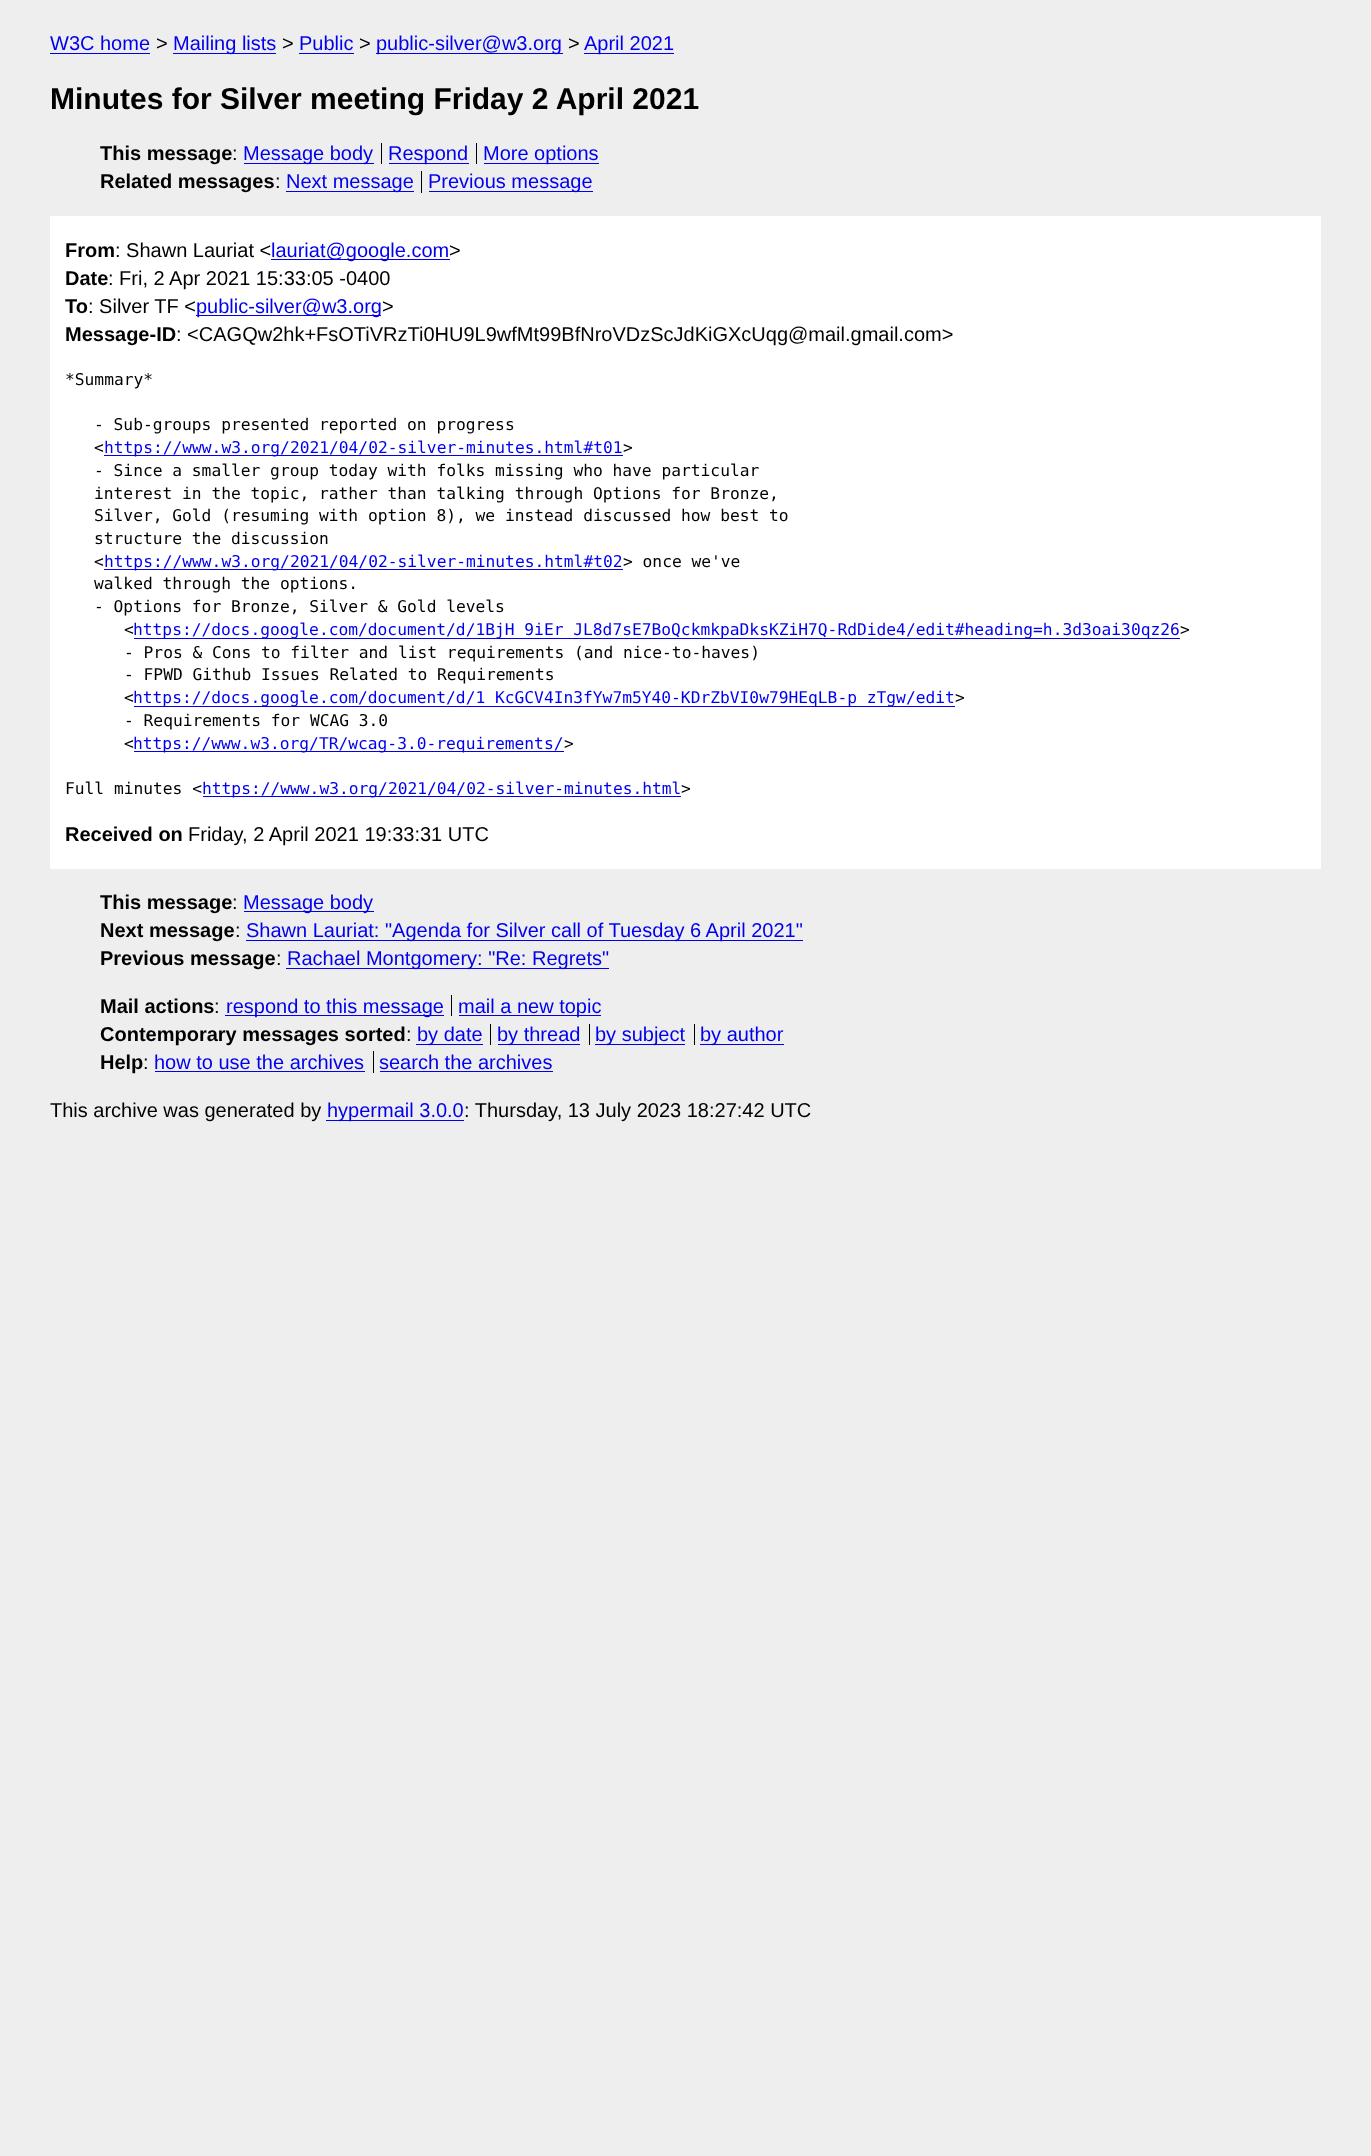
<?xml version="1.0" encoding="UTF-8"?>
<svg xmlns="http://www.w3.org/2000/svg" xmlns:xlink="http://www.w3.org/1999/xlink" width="1371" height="2156">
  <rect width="100%" height="100%" fill="#eeeeee" />
  <rect x="50" y="53" width="100" height="1" fill="#0000ee" />
  <rect x="173" y="53" width="103" height="1" fill="#0000ee" />
  <rect x="299" y="53" width="55" height="1" fill="#0000ee" />
  <rect x="376" y="53" width="187" height="1" fill="#0000ee" />
  <rect x="584" y="53" width="90" height="1" fill="#0000ee" />
  <rect x="381" y="143" width="1" height="21" fill="#000000" />
  <rect x="244" y="163" width="130" height="1" fill="#0000ee" />
  <rect x="389" y="163" width="80" height="1" fill="#0000ee" />
  <rect x="476" y="143" width="1" height="21" fill="#000000" />
  <rect x="484" y="163" width="115" height="1" fill="#0000ee" />
  <rect x="286" y="191" width="128" height="1" fill="#0000ee" />
  <rect x="421" y="171" width="1" height="22" fill="#000000" />
  <rect x="429" y="191" width="164" height="1" fill="#0000ee" />
  <rect x="50" y="216" width="1271" height="653" fill="#ffffff" />
  <rect x="271" y="259" width="179" height="1" fill="#0000ee" />
  <rect x="196" y="315" width="185" height="1" fill="#0000ee" />
  <rect x="104" y="455" width="519" height="1" fill="#0000ee" />
  <rect x="104" y="569" width="519" height="1" fill="#0000ee" />
  <rect x="134" y="638" width="1046" height="1" fill="#0000ee" />
  <rect x="134" y="706" width="821" height="1" fill="#0000ee" />
  <rect x="134" y="751" width="430" height="1" fill="#0000ee" />
  <rect x="203" y="796" width="478" height="1" fill="#0000ee" />
  <rect x="244" y="911" width="130" height="1" fill="#0000ee" />
  <rect x="246" y="940" width="557" height="1" fill="#0000ee" />
  <rect x="286" y="968" width="323" height="1" fill="#0000ee" />
  <rect x="225" y="1015" width="219" height="1" fill="#0000ee" />
  <rect x="451" y="995" width="1" height="21" fill="#000000" />
  <rect x="459" y="1015" width="142" height="1" fill="#0000ee" />
  <rect x="416" y="1044" width="67" height="1" fill="#0000ee" />
  <rect x="490" y="1024" width="1" height="21" fill="#000000" />
  <rect x="498" y="1044" width="82" height="1" fill="#0000ee" />
  <rect x="589" y="1024" width="1" height="21" fill="#000000" />
  <rect x="595" y="1044" width="90" height="1" fill="#0000ee" />
  <rect x="694" y="1024" width="1" height="21" fill="#000000" />
  <rect x="700" y="1044" width="84" height="1" fill="#0000ee" />
  <rect x="155" y="1071" width="210" height="1" fill="#0000ee" />
  <rect x="373" y="1051" width="1" height="22" fill="#000000" />
  <rect x="380" y="1071" width="173" height="1" fill="#0000ee" />
  <rect x="326" y="1120" width="138" height="1" fill="#0000ee" />
  <text x="50" y="50" style="font-family: Liberation Sans; font-size: 20px; fill: #0000ee">W3C home</text>
  <text x="156" y="50" style="font-family: Liberation Sans; font-size: 20px; fill: #000000">&gt;</text>
  <text x="173" y="50" style="font-family: Liberation Sans; font-size: 20px; fill: #0000ee">Mailing lists</text>
  <text x="282" y="50" style="font-family: Liberation Sans; font-size: 20px; fill: #000000">&gt;</text>
  <text x="299" y="50" style="font-family: Liberation Sans; font-size: 20px; fill: #0000ee">Public</text>
  <text x="359" y="50" style="font-family: Liberation Sans; font-size: 20px; fill: #000000">&gt;</text>
  <text x="376" y="50" style="font-family: Liberation Sans; font-size: 20px; fill: #0000ee">public-silver@w3.org</text>
  <text x="568" y="50" style="font-family: Liberation Sans; font-size: 20px; fill: #000000">&gt;</text>
  <text x="584" y="50" style="font-family: Liberation Sans; font-size: 20px; fill: #0000ee">April 2021</text>
  <text x="50" y="109" style="font-family: Liberation Sans; font-size: 30px; font-weight: bold; fill: #000000">Minutes for Silver meeting Friday 2 April 2021</text>
  <text x="100" y="160" style="font-family: Liberation Sans; font-size: 20px; font-weight: bold; fill: #000000">This message</text>
  <text x="232" y="160" style="font-family: Liberation Sans; font-size: 20px; fill: #000000">:</text>
  <text x="243" y="160" style="font-family: Liberation Sans; font-size: 20px; fill: #0000ee">Message body</text>
  <text x="388" y="160" style="font-family: Liberation Sans; font-size: 20px; fill: #0000ee">Respond</text>
  <text x="483" y="160" style="font-family: Liberation Sans; font-size: 20px; fill: #0000ee">More options</text>
  <text x="100" y="188" style="font-family: Liberation Sans; font-size: 20px; font-weight: bold; fill: #000000">Related messages</text>
  <text x="275" y="188" style="font-family: Liberation Sans; font-size: 20px; fill: #000000">:</text>
  <text x="286" y="188" style="font-family: Liberation Sans; font-size: 20px; fill: #0000ee">Next message</text>
  <text x="428" y="188" style="font-family: Liberation Sans; font-size: 20px; fill: #0000ee">Previous message</text>
  <text x="65" y="257" style="font-family: Liberation Sans; font-size: 20px; font-weight: bold; fill: #000000">From</text>
  <text x="115" y="257" style="font-family: Liberation Sans; font-size: 20px; fill: #000000">: Shawn Lauriat &lt;</text>
  <text x="271" y="257" style="font-family: Liberation Sans; font-size: 20px; fill: #0000ee">lauriat@google.com</text>
  <text x="449" y="257" style="font-family: Liberation Sans; font-size: 20px; fill: #000000">&gt;</text>
  <text x="65" y="285" style="font-family: Liberation Sans; font-size: 20px; font-weight: bold; fill: #000000">Date</text>
  <text x="108" y="285" style="font-family: Liberation Sans; font-size: 20px; fill: #000000">: Fri, 2 Apr 2021 15:33:05 -0400</text>
  <text x="65" y="313" style="font-family: Liberation Sans; font-size: 20px; font-weight: bold; fill: #000000">To</text>
  <text x="88" y="313" style="font-family: Liberation Sans; font-size: 20px; fill: #000000">: Silver TF &lt;</text>
  <text x="196" y="313" style="font-family: Liberation Sans; font-size: 20px; fill: #0000ee">public-silver@w3.org</text>
  <text x="382" y="313" style="font-family: Liberation Sans; font-size: 20px; fill: #000000">&gt;</text>
  <text x="65" y="341" style="font-family: Liberation Sans; font-size: 20px; font-weight: bold; fill: #000000">Message-ID</text>
  <text x="176" y="341" style="font-family: Liberation Sans; font-size: 20px; fill: #000000">: &lt;CAGQw2hk+FsOTiVRzTi0HU9L9wfMt99BfNroVDzScJdKiGXcUqg@mail.gmail.com&gt;</text>
  <text x="65" y="385" style="font-family: DejaVu Sans Mono; font-size: 16.25px; fill: #000000">*Summary*</text>
  <text x="94" y="430" style="font-family: DejaVu Sans Mono; font-size: 16.25px; fill: #000000">- Sub-groups presented reported on progress</text>
  <text x="94" y="453" style="font-family: DejaVu Sans Mono; font-size: 16.25px; fill: #000000">&lt;</text>
  <text x="104" y="453" style="font-family: DejaVu Sans Mono; font-size: 16.25px; fill: #0000ee">https://www.w3.org/2021/04/02-silver-minutes.html#t01</text>
  <text x="623" y="453" style="font-family: DejaVu Sans Mono; font-size: 16.25px; fill: #000000">&gt;</text>
  <text x="94" y="476" style="font-family: DejaVu Sans Mono; font-size: 16.25px; fill: #000000">- Since a smaller group today with folks missing who have particular</text>
  <text x="94" y="499" style="font-family: DejaVu Sans Mono; font-size: 16.25px; fill: #000000">interest in the topic, rather than talking through Options for Bronze,</text>
  <text x="94" y="521" style="font-family: DejaVu Sans Mono; font-size: 16.25px; fill: #000000">Silver, Gold (resuming with option 8), we instead discussed how best to</text>
  <text x="94" y="544" style="font-family: DejaVu Sans Mono; font-size: 16.25px; fill: #000000">structure the discussion</text>
  <text x="94" y="567" style="font-family: DejaVu Sans Mono; font-size: 16.25px; fill: #000000">&lt;</text>
  <text x="104" y="567" style="font-family: DejaVu Sans Mono; font-size: 16.25px; fill: #0000ee">https://www.w3.org/2021/04/02-silver-minutes.html#t02</text>
  <text x="623" y="567" style="font-family: DejaVu Sans Mono; font-size: 16.25px; fill: #000000">&gt; once we've</text>
  <text x="94" y="589" style="font-family: DejaVu Sans Mono; font-size: 16.25px; fill: #000000">walked through the options.</text>
  <text x="94" y="612" style="font-family: DejaVu Sans Mono; font-size: 16.25px; fill: #000000">- Options for Bronze, Silver &amp; Gold levels</text>
  <text x="124" y="635" style="font-family: DejaVu Sans Mono; font-size: 16.25px; fill: #000000">&lt;</text>
  <text x="133" y="635" style="font-family: DejaVu Sans Mono; font-size: 16.25px; fill: #0000ee">https://docs.google.com/document/d/1BjH_9iEr_JL8d7sE7BoQckmkpaDksKZiH7Q-RdDide4/edit#heading=h.3d3oai30qz26</text>
  <text x="1180" y="635" style="font-family: DejaVu Sans Mono; font-size: 16.25px; fill: #000000">&gt;</text>
  <text x="124" y="658" style="font-family: DejaVu Sans Mono; font-size: 16.25px; fill: #000000">- Pros &amp; Cons to filter and list requirements (and nice-to-haves)</text>
  <text x="124" y="680" style="font-family: DejaVu Sans Mono; font-size: 16.25px; fill: #000000">- FPWD Github Issues Related to Requirements</text>
  <text x="124" y="703" style="font-family: DejaVu Sans Mono; font-size: 16.25px; fill: #000000">&lt;</text>
  <text x="133" y="703" style="font-family: DejaVu Sans Mono; font-size: 16.25px; fill: #0000ee">https://docs.google.com/document/d/1_KcGCV4In3fYw7m5Y40-KDrZbVI0w79HEqLB-p_zTgw/edit</text>
  <text x="955" y="703" style="font-family: DejaVu Sans Mono; font-size: 16.25px; fill: #000000">&gt;</text>
  <text x="124" y="726" style="font-family: DejaVu Sans Mono; font-size: 16.25px; fill: #000000">- Requirements for WCAG 3.0</text>
  <text x="124" y="749" style="font-family: DejaVu Sans Mono; font-size: 16.25px; fill: #000000">&lt;</text>
  <text x="133" y="749" style="font-family: DejaVu Sans Mono; font-size: 16.25px; fill: #0000ee">https://www.w3.org/TR/wcag-3.0-requirements/</text>
  <text x="564" y="749" style="font-family: DejaVu Sans Mono; font-size: 16.25px; fill: #000000">&gt;</text>
  <text x="65" y="794" style="font-family: DejaVu Sans Mono; font-size: 16.25px; fill: #000000">Full minutes &lt;</text>
  <text x="202" y="794" style="font-family: DejaVu Sans Mono; font-size: 16.25px; fill: #0000ee">https://www.w3.org/2021/04/02-silver-minutes.html</text>
  <text x="681" y="794" style="font-family: DejaVu Sans Mono; font-size: 16.25px; fill: #000000">&gt;</text>
  <text x="65" y="841" style="font-family: Liberation Sans; font-size: 20px; font-weight: bold; fill: #000000">Received on</text>
  <text x="188" y="841" style="font-family: Liberation Sans; font-size: 20px; fill: #000000">Friday, 2 April 2021 19:33:31 UTC</text>
  <text x="100" y="909" style="font-family: Liberation Sans; font-size: 20px; font-weight: bold; fill: #000000">This message</text>
  <text x="232" y="909" style="font-family: Liberation Sans; font-size: 20px; fill: #000000">:</text>
  <text x="243" y="909" style="font-family: Liberation Sans; font-size: 20px; fill: #0000ee">Message body</text>
  <text x="100" y="937" style="font-family: Liberation Sans; font-size: 20px; font-weight: bold; fill: #000000">Next message</text>
  <text x="235" y="937" style="font-family: Liberation Sans; font-size: 20px; fill: #000000">:</text>
  <text x="246" y="937" style="font-family: Liberation Sans; font-size: 20px; fill: #0000ee">Shawn Lauriat: "Agenda for Silver call of Tuesday 6 April 2021"</text>
  <text x="100" y="965" style="font-family: Liberation Sans; font-size: 20px; font-weight: bold; fill: #000000">Previous message</text>
  <text x="276" y="965" style="font-family: Liberation Sans; font-size: 20px; fill: #000000">:</text>
  <text x="287" y="965" style="font-family: Liberation Sans; font-size: 20px; fill: #0000ee">Rachael Montgomery: "Re: Regrets"</text>
  <text x="100" y="1013" style="font-family: Liberation Sans; font-size: 20px; font-weight: bold; fill: #000000">Mail actions</text>
  <text x="214" y="1013" style="font-family: Liberation Sans; font-size: 20px; fill: #000000">:</text>
  <text x="226" y="1013" style="font-family: Liberation Sans; font-size: 20px; fill: #0000ee">respond to this message</text>
  <text x="458" y="1013" style="font-family: Liberation Sans; font-size: 20px; fill: #0000ee">mail a new topic</text>
  <text x="100" y="1041" style="font-family: Liberation Sans; font-size: 20px; font-weight: bold; fill: #000000">Contemporary messages sorted</text>
  <text x="406" y="1041" style="font-family: Liberation Sans; font-size: 20px; fill: #000000">:</text>
  <text x="417" y="1041" style="font-family: Liberation Sans; font-size: 20px; fill: #0000ee">by date</text>
  <text x="497" y="1041" style="font-family: Liberation Sans; font-size: 20px; fill: #0000ee">by thread</text>
  <text x="595" y="1041" style="font-family: Liberation Sans; font-size: 20px; fill: #0000ee">by subject</text>
  <text x="700" y="1041" style="font-family: Liberation Sans; font-size: 20px; fill: #0000ee">by author</text>
  <text x="100" y="1069" style="font-family: Liberation Sans; font-size: 20px; font-weight: bold; fill: #000000">Help</text>
  <text x="143" y="1069" style="font-family: Liberation Sans; font-size: 20px; fill: #000000">:</text>
  <text x="154" y="1069" style="font-family: Liberation Sans; font-size: 20px; fill: #0000ee">how to use the archives</text>
  <text x="379" y="1069" style="font-family: Liberation Sans; font-size: 20px; fill: #0000ee">search the archives</text>
  <text x="50" y="1117" style="font-family: Liberation Sans; font-size: 20px; fill: #000000">This archive was generated by</text>
  <text x="327" y="1117" style="font-family: Liberation Sans; font-size: 20px; fill: #0000ee">hypermail 3.0.0</text>
  <text x="464" y="1117" style="font-family: Liberation Sans; font-size: 20px; fill: #000000">: Thursday, 13 July 2023 18:27:42 UTC</text>
</svg>
